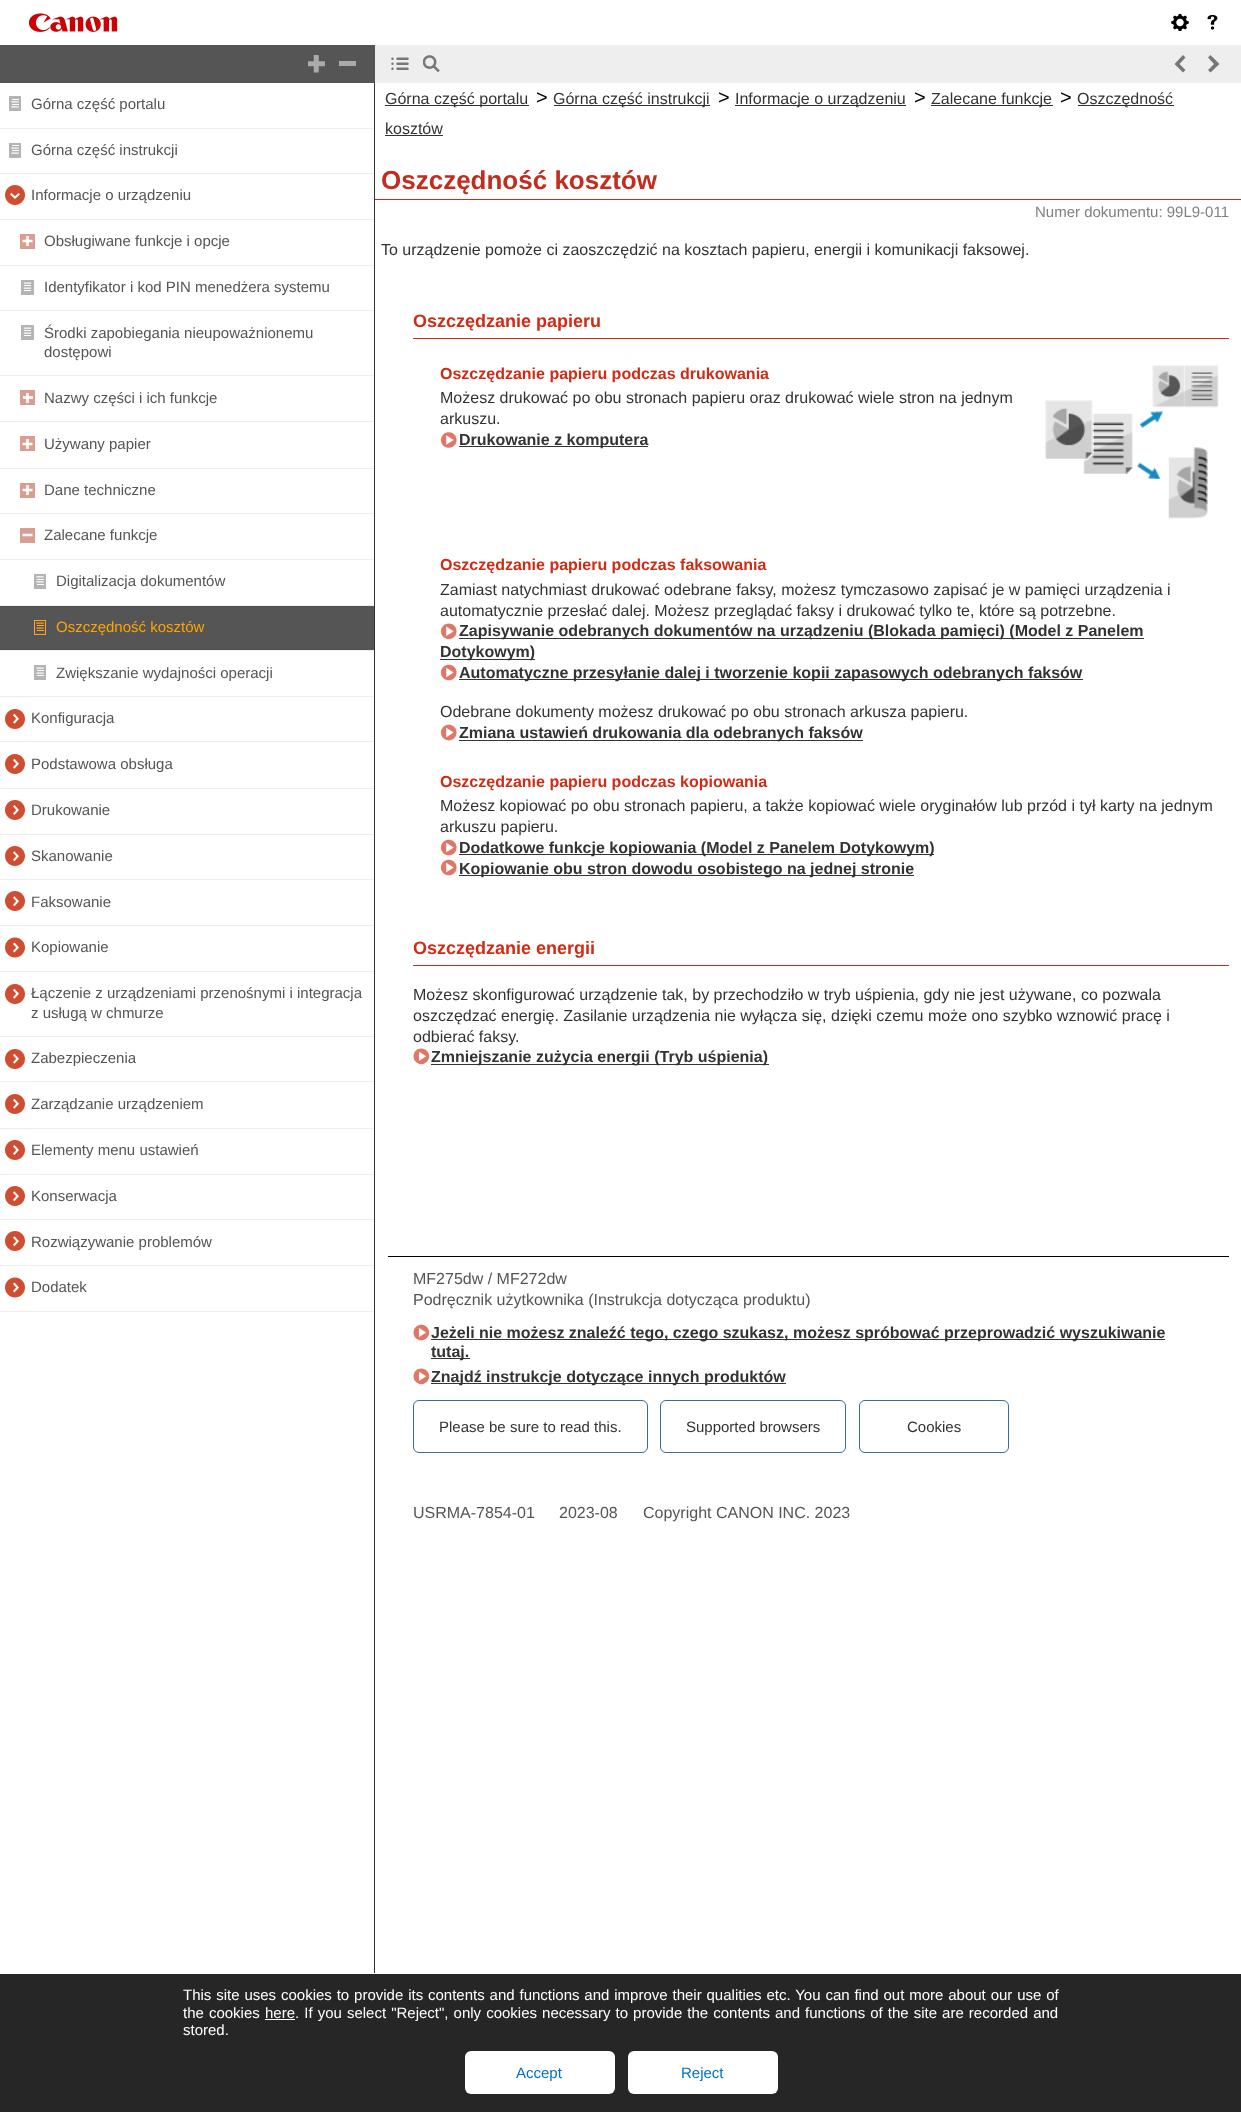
<?xml version="1.0" encoding="UTF-8"?>
<svg xmlns="http://www.w3.org/2000/svg" xmlns:xlink="http://www.w3.org/1999/xlink" width="1241" height="2112">
  <rect width="100%" height="100%" fill="#ffffff" />
  <image x="29" y="13" width="89" height="19" xlink:href="image1.png" />
  <image x="1171" y="14" width="18" height="17" xlink:href="image2.png" />
  <image x="1207" y="14" width="11" height="16" xlink:href="image3.png" />
  <rect y="45" width="375" height="38" fill="#555555" />
  <image x="308" y="55" width="17" height="18" xlink:href="image4.png" />
  <rect x="339" y="61" width="17" height="5" fill="#aaaaaa" />
  <rect x="375" y="45" width="866" height="38" fill="#eeeeee" />
  <image x="391" y="57" width="18" height="13" xlink:href="image5.png" />
  <image x="423" y="55" width="17" height="18" xlink:href="image6.png" />
  <path d="M 1185.5 70 l -6 -6 l 6 -6.5 l -2.5 -2.5 l -8.5 9 l 8.5 8.5 z m 22.5 -12.5 l 6 6.5 l -6 6 l 2.5 2.5 l 9 -8.5 l -9 -9 z" fill="#777777" />
  <rect x="374" y="83" width="1" height="1890" fill="#333333" />
  <rect y="128" width="374" height="1" fill="#eeeeee" />
  <image x="9" y="96" width="12" height="15" xlink:href="image7.png" />
  <rect y="173" width="374" height="1" fill="#eeeeee" />
  <image x="9" y="143" width="12" height="15" xlink:href="image8.png" />
  <rect y="219" width="374" height="1" fill="#eeeeee" />
  <image x="5" y="185" width="20" height="20" xlink:href="image9.png" />
  <rect y="265" width="374" height="1" fill="#eeeeee" />
  <rect x="20" y="234" width="15" height="15" fill="#d79e91" />
  <rect x="26" y="236" width="3" height="10" fill="#f8efed" />
  <path d="M 22.5 241 h 10" fill="none" stroke="#ffffff" stroke-width="2.5" />
  <rect y="310" width="374" height="1" fill="#eeeeee" />
  <image x="21" y="280" width="13" height="15" xlink:href="image10.png" />
  <rect y="375" width="374" height="1" fill="#eeeeee" />
  <image x="21" y="325" width="13" height="15" xlink:href="image10.png" />
  <rect y="421" width="374" height="1" fill="#eeeeee" />
  <rect x="20" y="390" width="15" height="15" fill="#d79e91" />
  <rect x="23" y="396" width="10" height="3" fill="#f8efec" />
  <rect x="26" y="393" width="3" height="10" fill="#f8efed" />
  <rect x="26" y="396" width="3" height="3" fill="#fefcfc" />
  <rect y="468" width="374" height="1" fill="#eeeeee" />
  <rect x="20" y="436" width="15" height="15" fill="#d79e91" />
  <rect x="26" y="439" width="3" height="10" fill="#f8efed" />
  <path d="M 22.5 444 h 10" fill="none" stroke="#ffffff" stroke-width="2.5" />
  <rect y="513" width="374" height="1" fill="#eeeeee" />
  <rect x="20" y="483" width="15" height="15" fill="#d79e91" />
  <rect x="26" y="485" width="3" height="10" fill="#f8efed" />
  <path d="M 22.5 490 h 10" fill="none" stroke="#ffffff" stroke-width="2.5" />
  <rect y="559" width="374" height="1" fill="#eeeeee" />
  <rect x="20" y="528" width="15" height="15" fill="#d79e91" />
  <path d="M 22.5 535 h 10" fill="none" stroke="#ffffff" stroke-width="2.5" />
  <rect y="605" width="374" height="1" fill="#eeeeee" />
  <image x="34" y="574" width="12" height="15" xlink:href="image11.png" />
  <rect y="606" width="374" height="44" fill="#555555" />
  <rect y="650" width="374" height="1" fill="#eeeeee" />
  <image x="34" y="620" width="12" height="15" xlink:href="image12.png" />
  <rect y="696" width="374" height="1" fill="#eeeeee" />
  <image x="34" y="665" width="12" height="15" xlink:href="image13.png" />
  <rect y="741" width="374" height="1" fill="#eeeeee" />
  <image x="5" y="709" width="20" height="20" xlink:href="image14.png" />
  <rect y="788" width="374" height="1" fill="#eeeeee" />
  <image x="5" y="754" width="20" height="20" xlink:href="image14.png" />
  <rect y="834" width="374" height="1" fill="#eeeeee" />
  <image x="5" y="800" width="20" height="20" xlink:href="image15.png" />
  <rect y="879" width="374" height="1" fill="#eeeeee" />
  <image x="5" y="846" width="20" height="20" xlink:href="image16.png" />
  <rect y="925" width="374" height="1" fill="#eeeeee" />
  <image x="5" y="891" width="20" height="20" xlink:href="image16.png" />
  <rect y="971" width="374" height="1" fill="#eeeeee" />
  <image x="5" y="937" width="20" height="21" xlink:href="image17.png" />
  <rect y="1036" width="374" height="1" fill="#eeeeee" />
  <image x="5" y="984" width="20" height="20" xlink:href="image14.png" />
  <rect y="1081" width="374" height="1" fill="#eeeeee" />
  <image x="5" y="1049" width="20" height="20" xlink:href="image14.png" />
  <rect y="1128" width="374" height="1" fill="#eeeeee" />
  <image x="5" y="1094" width="20" height="20" xlink:href="image14.png" />
  <rect y="1174" width="374" height="1" fill="#eeeeee" />
  <image x="5" y="1140" width="20" height="20" xlink:href="image15.png" />
  <rect y="1219" width="374" height="1" fill="#eeeeee" />
  <image x="5" y="1186" width="20" height="20" xlink:href="image16.png" />
  <rect y="1265" width="374" height="1" fill="#eeeeee" />
  <image x="5" y="1231" width="20" height="20" xlink:href="image16.png" />
  <rect y="1311" width="374" height="1" fill="#eeeeee" />
  <image x="5" y="1277" width="20" height="21" xlink:href="image17.png" />
  <rect x="385" y="105" width="144" height="1" fill="#333333" />
  <rect x="554" y="105" width="156" height="1" fill="#333333" />
  <rect x="735" y="105" width="171" height="1" fill="#333333" />
  <rect x="931" y="105" width="122" height="1" fill="#333333" />
  <rect x="1078" y="105" width="96" height="1" fill="#333333" />
  <rect x="385" y="135" width="58" height="1" fill="#333333" />
  <rect x="375" y="199" width="866" height="1" fill="#d02b14" />
  <rect x="413" y="338" width="816" height="1" fill="#d02b14" />
  <image x="440" y="432" width="17" height="16" xlink:href="image18.png" />
  <rect x="459" y="446" width="189" height="1" fill="#353535" />
  <image x="1045" y="365" width="174" height="154" xlink:href="image19.png" />
  <image x="440" y="623" width="17" height="17" xlink:href="image20.png" />
  <rect x="459" y="638" width="685" height="1" fill="#353535" />
  <rect x="440" y="659" width="95" height="1" fill="#353535" />
  <image x="440" y="664" width="17" height="17" xlink:href="image21.png" />
  <rect x="459" y="679" width="624" height="1" fill="#353535" />
  <image x="440" y="724" width="17" height="17" xlink:href="image21.png" />
  <rect x="459" y="740" width="404" height="1" fill="#353535" />
  <image x="440" y="839" width="17" height="17" xlink:href="image21.png" />
  <rect x="459" y="854" width="475" height="1" fill="#353535" />
  <image x="440" y="859" width="17" height="17" xlink:href="image21.png" />
  <rect x="459" y="875" width="455" height="1" fill="#353535" />
  <rect x="413" y="965" width="816" height="1" fill="#d02b14" />
  <image x="413" y="1048" width="17" height="17" xlink:href="image22.png" />
  <rect x="431" y="1064" width="338" height="1" fill="#353535" />
  <rect x="388" y="1256" width="841" height="1" fill="#000000" />
  <image x="413" y="1324" width="17" height="17" xlink:href="image23.png" />
  <rect x="431" y="1339" width="734" height="1" fill="#353535" />
  <rect x="431" y="1358" width="39" height="1" fill="#353535" />
  <image x="413" y="1368" width="17" height="17" xlink:href="image22.png" />
  <rect x="431" y="1383" width="355" height="1" fill="#353535" />
  <rect x="413.5" y="1400.5" width="234" height="52" rx="5.5" fill="none" stroke="#3a6c98" />
  <rect x="660.5" y="1400.5" width="185" height="52" rx="5.5" fill="none" stroke="#3a6c98" />
  <rect x="859.5" y="1400.5" width="149" height="52" rx="5.5" fill="none" stroke="#3a6c98" />
  <rect y="1974" width="1241" height="138" fill="#262626" />
  <rect x="265" y="2019" width="30" height="1" fill="#ffffff" />
  <rect x="465" y="2051" width="150" height="43" rx="6" fill="#ffffff" />
  <rect x="628" y="2051" width="150" height="43" rx="6" fill="#ffffff" />
  <text x="31" y="109" style="font-family: Liberation Sans; font-size: 15px; fill: #555555">Górna część portalu</text>
  <text x="31" y="155" style="font-family: Liberation Sans; font-size: 15px; fill: #555555">Górna część instrukcji</text>
  <text x="31" y="200" style="font-family: Liberation Sans; font-size: 15px; fill: #555555">Informacje o urządzeniu</text>
  <text x="44" y="246" style="font-family: Liberation Sans; font-size: 15px; fill: #555555">Obsługiwane funkcje i opcje</text>
  <text x="44" y="292" style="font-family: Liberation Sans; font-size: 15px; fill: #555555">Identyfikator i kod PIN menedżera systemu</text>
  <text x="44" y="338" style="font-family: Liberation Sans; font-size: 15px; fill: #555555">Środki zapobiegania nieupoważnionemu</text>
  <text x="44" y="357" style="font-family: Liberation Sans; font-size: 15px; fill: #555555">dostępowi</text>
  <text x="44" y="403" style="font-family: Liberation Sans; font-size: 15px; fill: #555555">Nazwy części i ich funkcje</text>
  <text x="44" y="449" style="font-family: Liberation Sans; font-size: 15px; fill: #555555">Używany papier</text>
  <text x="44" y="495" style="font-family: Liberation Sans; font-size: 15px; fill: #555555">Dane techniczne</text>
  <text x="44" y="540" style="font-family: Liberation Sans; font-size: 15px; fill: #555555">Zalecane funkcje</text>
  <text x="56" y="586" style="font-family: Liberation Sans; font-size: 15px; fill: #555555">Digitalizacja dokumentów</text>
  <text x="56" y="632" style="font-family: Liberation Sans; font-size: 15px; fill: #ffa500">Oszczędność kosztów</text>
  <text x="56" y="678" style="font-family: Liberation Sans; font-size: 15px; fill: #555555">Zwiększanie wydajności operacji</text>
  <text x="31" y="723" style="font-family: Liberation Sans; font-size: 15px; fill: #555555">Konfiguracja</text>
  <text x="31" y="769" style="font-family: Liberation Sans; font-size: 15px; fill: #555555">Podstawowa obsługa</text>
  <text x="31" y="815" style="font-family: Liberation Sans; font-size: 15px; fill: #555555">Drukowanie</text>
  <text x="31" y="861" style="font-family: Liberation Sans; font-size: 15px; fill: #555555">Skanowanie</text>
  <text x="31" y="907" style="font-family: Liberation Sans; font-size: 15px; fill: #555555">Faksowanie</text>
  <text x="31" y="952" style="font-family: Liberation Sans; font-size: 15px; fill: #555555">Kopiowanie</text>
  <text x="31" y="998" style="font-family: Liberation Sans; font-size: 15px; fill: #555555">Łączenie z urządzeniami przenośnymi i integracja</text>
  <text x="31" y="1018" style="font-family: Liberation Sans; font-size: 15px; fill: #555555">z usługą w chmurze</text>
  <text x="31" y="1063" style="font-family: Liberation Sans; font-size: 15px; fill: #555555">Zabezpieczenia</text>
  <text x="31" y="1109" style="font-family: Liberation Sans; font-size: 15px; fill: #555555">Zarządzanie urządzeniem</text>
  <text x="31" y="1155" style="font-family: Liberation Sans; font-size: 15px; fill: #555555">Elementy menu ustawień</text>
  <text x="31" y="1201" style="font-family: Liberation Sans; font-size: 15px; fill: #555555">Konserwacja</text>
  <text x="31" y="1247" style="font-family: Liberation Sans; font-size: 15px; fill: #555555">Rozwiązywanie problemów</text>
  <text x="31" y="1292" style="font-family: Liberation Sans; font-size: 15px; fill: #555555">Dodatek</text>
  <text x="385" y="104" style="font-family: Liberation Sans; font-size: 16px; fill: #333333">Górna część portalu</text>
  <text x="536" y="104" style="font-family: Liberation Sans; font-size: 20px; fill: #000000">&gt;</text>
  <text x="553" y="104" style="font-family: Liberation Sans; font-size: 16px; fill: #333333">Górna część instrukcji</text>
  <text x="718" y="104" style="font-family: Liberation Sans; font-size: 20px; fill: #000000">&gt;</text>
  <text x="735" y="104" style="font-family: Liberation Sans; font-size: 16px; fill: #333333">Informacje o urządzeniu</text>
  <text x="914" y="104" style="font-family: Liberation Sans; font-size: 20px; fill: #000000">&gt;</text>
  <text x="931" y="104" style="font-family: Liberation Sans; font-size: 16px; fill: #333333">Zalecane funkcje</text>
  <text x="1060" y="104" style="font-family: Liberation Sans; font-size: 20px; fill: #000000">&gt;</text>
  <text x="1077" y="104" style="font-family: Liberation Sans; font-size: 16px; fill: #333333">Oszczędność</text>
  <text x="385" y="134" style="font-family: Liberation Sans; font-size: 16px; fill: #333333">kosztów</text>
  <text x="381" y="189" style="font-family: Liberation Sans; font-size: 26px; font-weight: bold; fill: #c42c1e">Oszczędność kosztów</text>
  <text x="1035" y="217" style="font-family: Liberation Sans; font-size: 15px; fill: #808080">Numer dokumentu: 99L9-011</text>
  <text x="381" y="255" style="font-family: Liberation Sans; font-size: 16px; fill: #333333">To urządzenie pomoże ci zaoszczędzić na kosztach papieru, energii i komunikacji faksowej.</text>
  <text x="413" y="327" style="font-family: Liberation Sans; font-size: 18px; font-weight: bold; fill: #d02b14">Oszczędzanie papieru</text>
  <text x="440" y="379" style="font-family: Liberation Sans; font-size: 16px; font-weight: bold; fill: #d02b14">Oszczędzanie papieru podczas drukowania</text>
  <text x="440" y="403" style="font-family: Liberation Sans; font-size: 16px; fill: #333333">Możesz drukować po obu stronach papieru oraz drukować wiele stron na jednym</text>
  <text x="440" y="424" style="font-family: Liberation Sans; font-size: 16px; fill: #333333">arkuszu.</text>
  <text x="459" y="445" style="font-family: Liberation Sans; font-size: 16px; font-weight: bold; fill: #333333">Drukowanie z komputera</text>
  <text x="440" y="570" style="font-family: Liberation Sans; font-size: 16px; font-weight: bold; fill: #d02b14">Oszczędzanie papieru podczas faksowania</text>
  <text x="440" y="595" style="font-family: Liberation Sans; font-size: 16px; fill: #333333">Zamiast natychmiast drukować odebrane faksy, możesz tymczasowo zapisać je w pamięci urządzenia i</text>
  <text x="440" y="616" style="font-family: Liberation Sans; font-size: 16px; fill: #333333">automatycznie przesłać dalej. Możesz przeglądać faksy i drukować tylko te, które są potrzebne.</text>
  <text x="459" y="636" style="font-family: Liberation Sans; font-size: 16px; font-weight: bold; fill: #333333">Zapisywanie odebranych dokumentów na urządzeniu (Blokada pamięci) (Model z Panelem</text>
  <text x="440" y="657" style="font-family: Liberation Sans; font-size: 16px; font-weight: bold; fill: #333333">Dotykowym)</text>
  <text x="459" y="678" style="font-family: Liberation Sans; font-size: 16px; font-weight: bold; fill: #333333">Automatyczne przesyłanie dalej i tworzenie kopii zapasowych odebranych faksów</text>
  <text x="440" y="717" style="font-family: Liberation Sans; font-size: 16px; fill: #333333">Odebrane dokumenty możesz drukować po obu stronach arkusza papieru.</text>
  <text x="459" y="738" style="font-family: Liberation Sans; font-size: 16px; font-weight: bold; fill: #333333">Zmiana ustawień drukowania dla odebranych faksów</text>
  <text x="440" y="787" style="font-family: Liberation Sans; font-size: 16px; font-weight: bold; fill: #d02b14">Oszczędzanie papieru podczas kopiowania</text>
  <text x="440" y="811" style="font-family: Liberation Sans; font-size: 16px; fill: #333333">Możesz kopiować po obu stronach papieru, a także kopiować wiele oryginałów lub przód i tył karty na jednym</text>
  <text x="440" y="832" style="font-family: Liberation Sans; font-size: 16px; fill: #333333">arkuszu papieru.</text>
  <text x="459" y="853" style="font-family: Liberation Sans; font-size: 16px; font-weight: bold; fill: #333333">Dodatkowe funkcje kopiowania (Model z Panelem Dotykowym)</text>
  <text x="459" y="874" style="font-family: Liberation Sans; font-size: 16px; font-weight: bold; fill: #333333">Kopiowanie obu stron dowodu osobistego na jednej stronie</text>
  <text x="413" y="954" style="font-family: Liberation Sans; font-size: 18px; font-weight: bold; fill: #d02b14">Oszczędzanie energii</text>
  <text x="413" y="1000" style="font-family: Liberation Sans; font-size: 16px; fill: #333333">Możesz skonfigurować urządzenie tak, by przechodziło w tryb uśpienia, gdy nie jest używane, co pozwala</text>
  <text x="413" y="1021" style="font-family: Liberation Sans; font-size: 16px; fill: #333333">oszczędzać energię. Zasilanie urządzenia nie wyłącza się, dzięki czemu może ono szybko wznowić pracę i</text>
  <text x="413" y="1042" style="font-family: Liberation Sans; font-size: 16px; fill: #333333">odbierać faksy.</text>
  <text x="431" y="1062" style="font-family: Liberation Sans; font-size: 16px; font-weight: bold; fill: #333333">Zmniejszanie zużycia energii (Tryb uśpienia)</text>
  <text x="413" y="1284" style="font-family: Liberation Sans; font-size: 16px; fill: #555555">MF275dw / MF272dw</text>
  <text x="413" y="1305" style="font-family: Liberation Sans; font-size: 16px; fill: #555555">Podręcznik użytkownika (Instrukcja dotycząca produktu)</text>
  <text x="431" y="1338" style="font-family: Liberation Sans; font-size: 16px; font-weight: bold; fill: #333333">Jeżeli nie możesz znaleźć tego, czego szukasz, możesz spróbować przeprowadzić wyszukiwanie</text>
  <text x="431" y="1357" style="font-family: Liberation Sans; font-size: 16px; font-weight: bold; fill: #333333">tutaj.</text>
  <text x="431" y="1382" style="font-family: Liberation Sans; font-size: 16px; font-weight: bold; fill: #333333">Znajdź instrukcje dotyczące innych produktów</text>
  <text x="439" y="1432" style="font-family: Liberation Sans; font-size: 15px; fill: #333333">Please be sure to read this.</text>
  <text x="686" y="1432" style="font-family: Liberation Sans; font-size: 15px; fill: #333333">Supported browsers</text>
  <text x="907" y="1432" style="font-family: Liberation Sans; font-size: 15px; fill: #333333">Cookies</text>
  <text x="413" y="1518" style="font-family: Liberation Sans; font-size: 16px; fill: #555555">USRMA-7854-01</text>
  <text x="559" y="1518" style="font-family: Liberation Sans; font-size: 16px; fill: #555555">2023-08</text>
  <text x="643" y="1518" style="font-family: Liberation Sans; font-size: 16px; fill: #555555">Copyright CANON INC. 2023</text>
  <text x="183" y="2000" word-spacing="0.7" style="font-family: Liberation Sans; font-size: 15px; fill: #ffffff">This site uses cookies to provide its contents and functions and improve their qualities etc. You can find out more about our use of</text>
  <text x="183" y="2018" word-spacing="0.9" style="font-family: Liberation Sans; font-size: 15px; fill: #ffffff">the cookies</text>
  <text x="265" y="2018" style="font-family: Liberation Sans; font-size: 15px; fill: #ffffff">here</text>
  <text x="295" y="2018" word-spacing="0.9" style="font-family: Liberation Sans; font-size: 15px; fill: #ffffff">. If you select "Reject", only cookies necessary to provide the contents and functions of the site are recorded and</text>
  <text x="183" y="2035" style="font-family: Liberation Sans; font-size: 15px; fill: #ffffff">stored.</text>
  <text x="516" y="2078" style="font-family: Liberation Sans; font-size: 15px; fill: #0070c0">Accept</text>
  <text x="681" y="2078" style="font-family: Liberation Sans; font-size: 15px; fill: #0070c0">Reject</text>
</svg>
